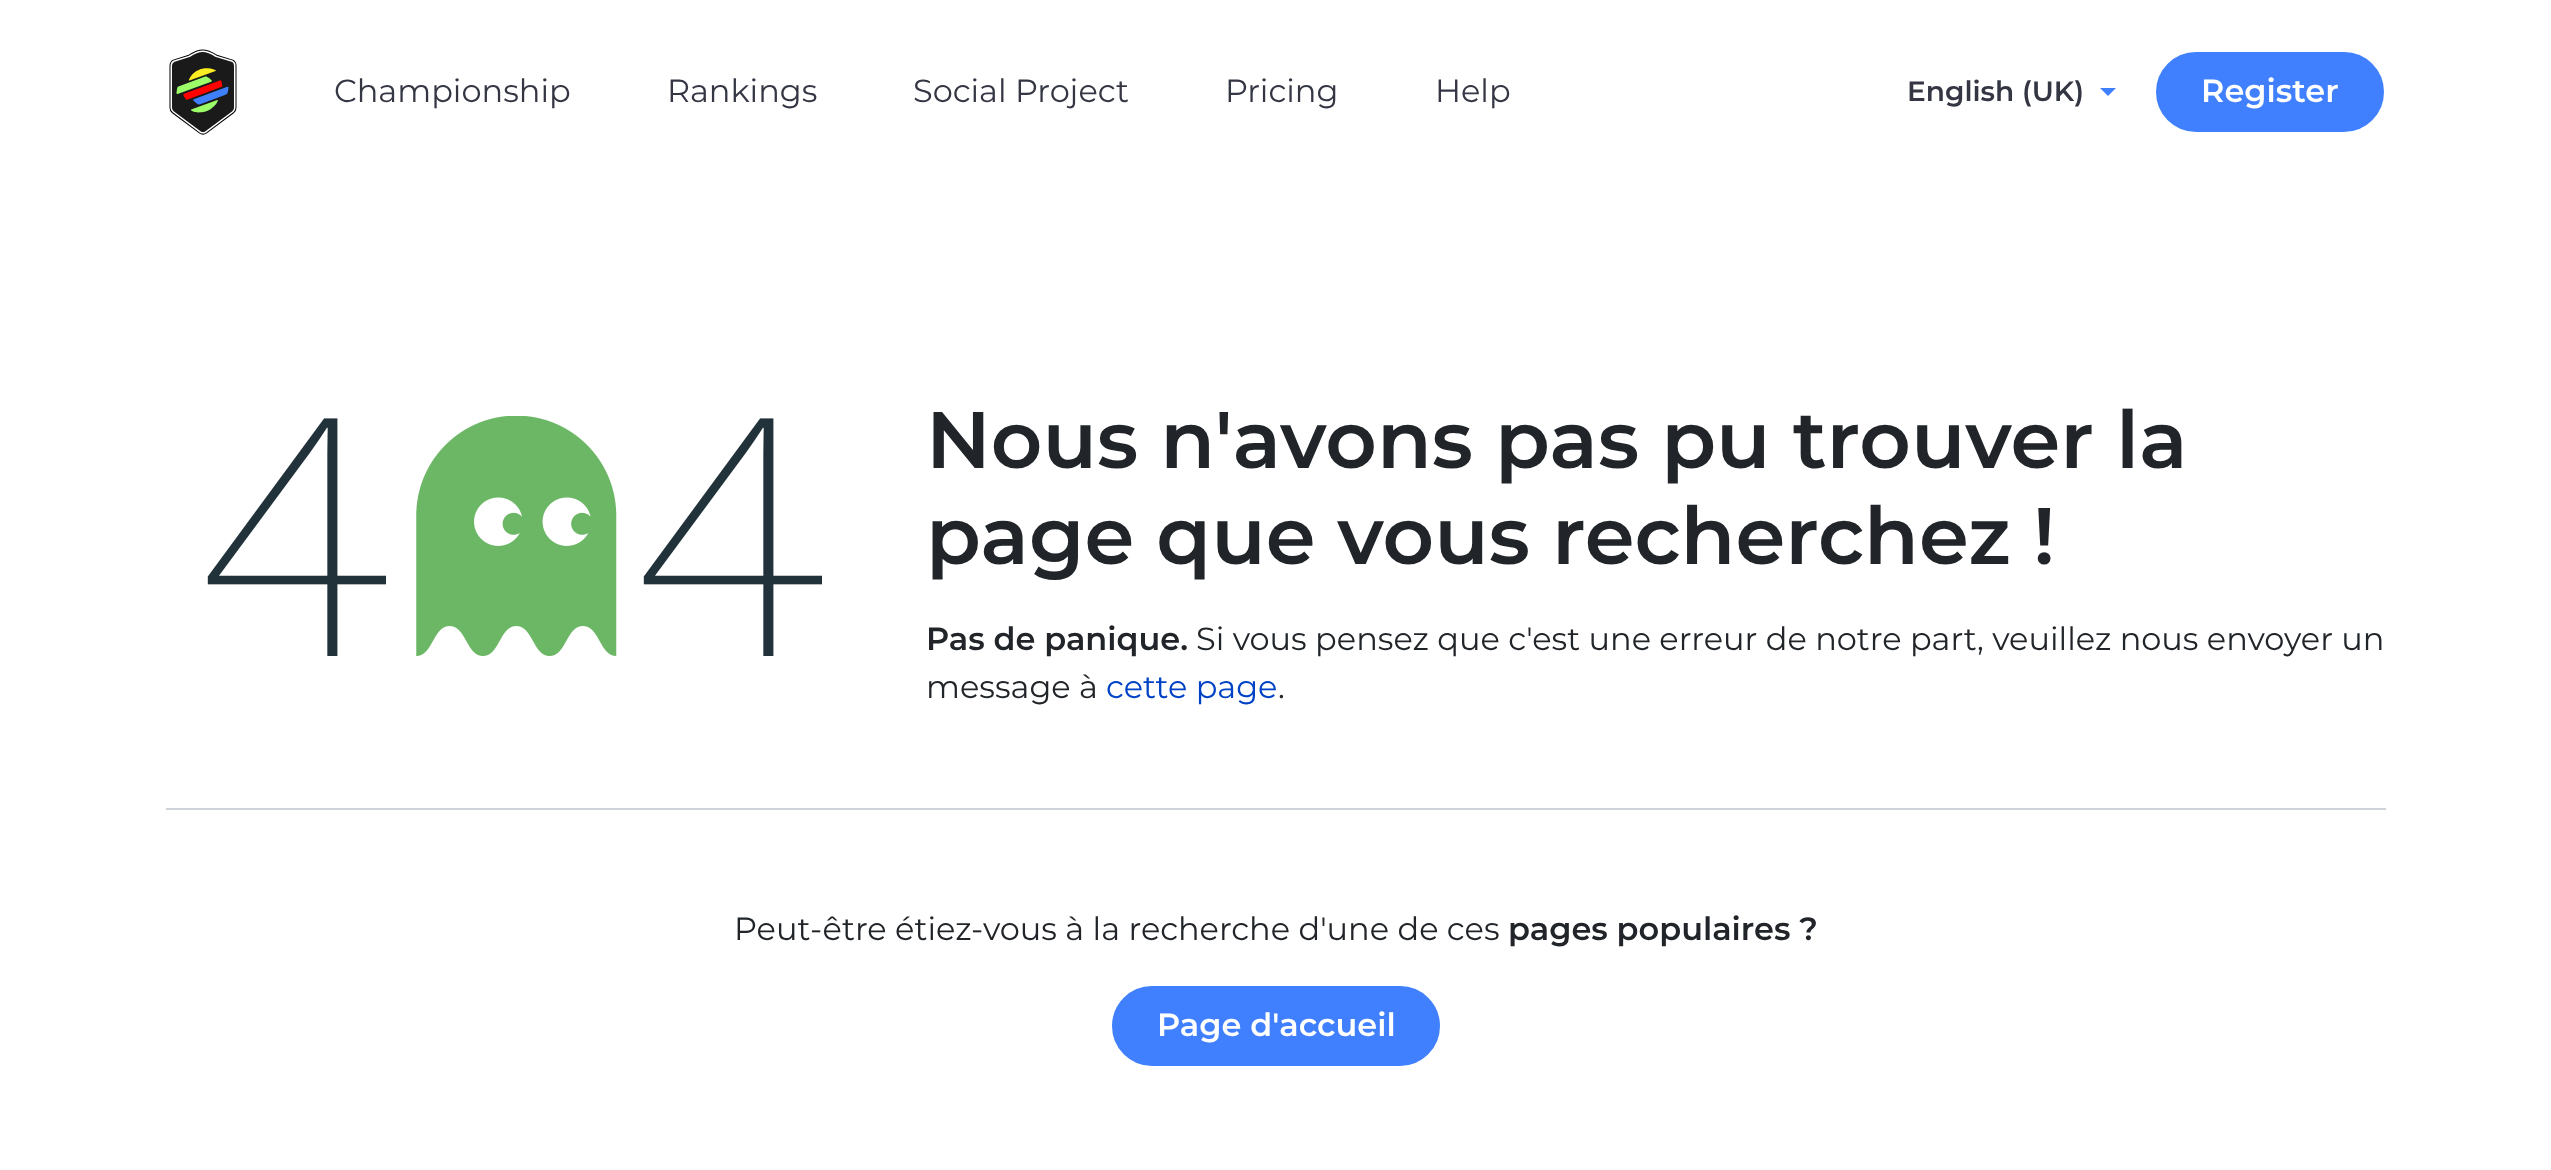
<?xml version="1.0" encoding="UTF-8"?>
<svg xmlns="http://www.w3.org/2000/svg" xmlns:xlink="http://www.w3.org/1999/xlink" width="2551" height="1170">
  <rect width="100%" height="100%" fill="#ffffff" />
  <image x="169" y="49" width="68" height="86" xlink:href="image1.png" />
  <path d="M 2100 88 h 16 l -8 8 z" fill="#4080ff" />
  <rect x="2157" y="53" width="226" height="78" rx="39" fill="#4080ff" stroke="#4080ff" stroke-width="2" />
  <image x="207" y="416" width="615" height="240" xlink:href="image2.png" />
  <rect x="166" y="808" width="2220" height="2" fill="#ced4da" />
  <rect x="1113" y="987" width="326" height="78" rx="39" fill="#4080ff" stroke="#4080ff" stroke-width="2" />
  <text x="334" y="102" style="font-family: Montserrat; font-size: 32px; fill: #343643">Championship</text>
  <text x="667" y="102" style="font-family: Montserrat; font-size: 32px; fill: #343643">Rankings</text>
  <text x="913" y="102" style="font-family: Montserrat; font-size: 32px; fill: #343643">Social Project</text>
  <text x="1225" y="102" style="font-family: Montserrat; font-size: 32px; fill: #343643">Pricing</text>
  <text x="1435" y="102" style="font-family: Montserrat; font-size: 32px; fill: #343643">Help</text>
  <text x="1907" y="101" style="font-family: Montserrat; font-size: 28px; font-weight: 600; fill: #343643">English (UK)</text>
  <text x="2201" y="102" style="font-family: Montserrat; font-size: 32px; font-weight: 600; fill: #ffffff">Register</text>
  <text x="926" y="468" style="font-family: Montserrat; font-size: 80px; font-weight: 600; fill: #212529">Nous n'avons pas pu trouver la</text>
  <text x="926" y="564" style="font-family: Montserrat; font-size: 80px; font-weight: 600; fill: #212529">page que vous recherchez !</text>
  <text x="926" y="650" style="font-family: Montserrat; font-size: 32px; font-weight: 600; fill: #212529">Pas de panique.</text>
  <text x="1196" y="650" style="font-family: Montserrat; font-size: 32px; fill: #212529">Si vous pensez que c'est une erreur de notre part, veuillez nous envoyer un</text>
  <text x="926" y="698" style="font-family: Montserrat; font-size: 32px; fill: #212529">message à</text>
  <text x="1106" y="698" style="font-family: Montserrat; font-size: 32px; fill: #0042c5">cette page</text>
  <text x="1278" y="698" style="font-family: Montserrat; font-size: 32px; fill: #212529">.</text>
  <text x="734" y="940" style="font-family: Montserrat; font-size: 32px; fill: #212529">Peut-être étiez-vous à la recherche d'une de ces</text>
  <text x="1508" y="940" style="font-family: Montserrat; font-size: 32px; font-weight: 600; fill: #212529">pages populaires ?</text>
  <text x="1157" y="1036" style="font-family: Montserrat; font-size: 32px; font-weight: 600; fill: #ffffff">Page d'accueil</text>
</svg>
